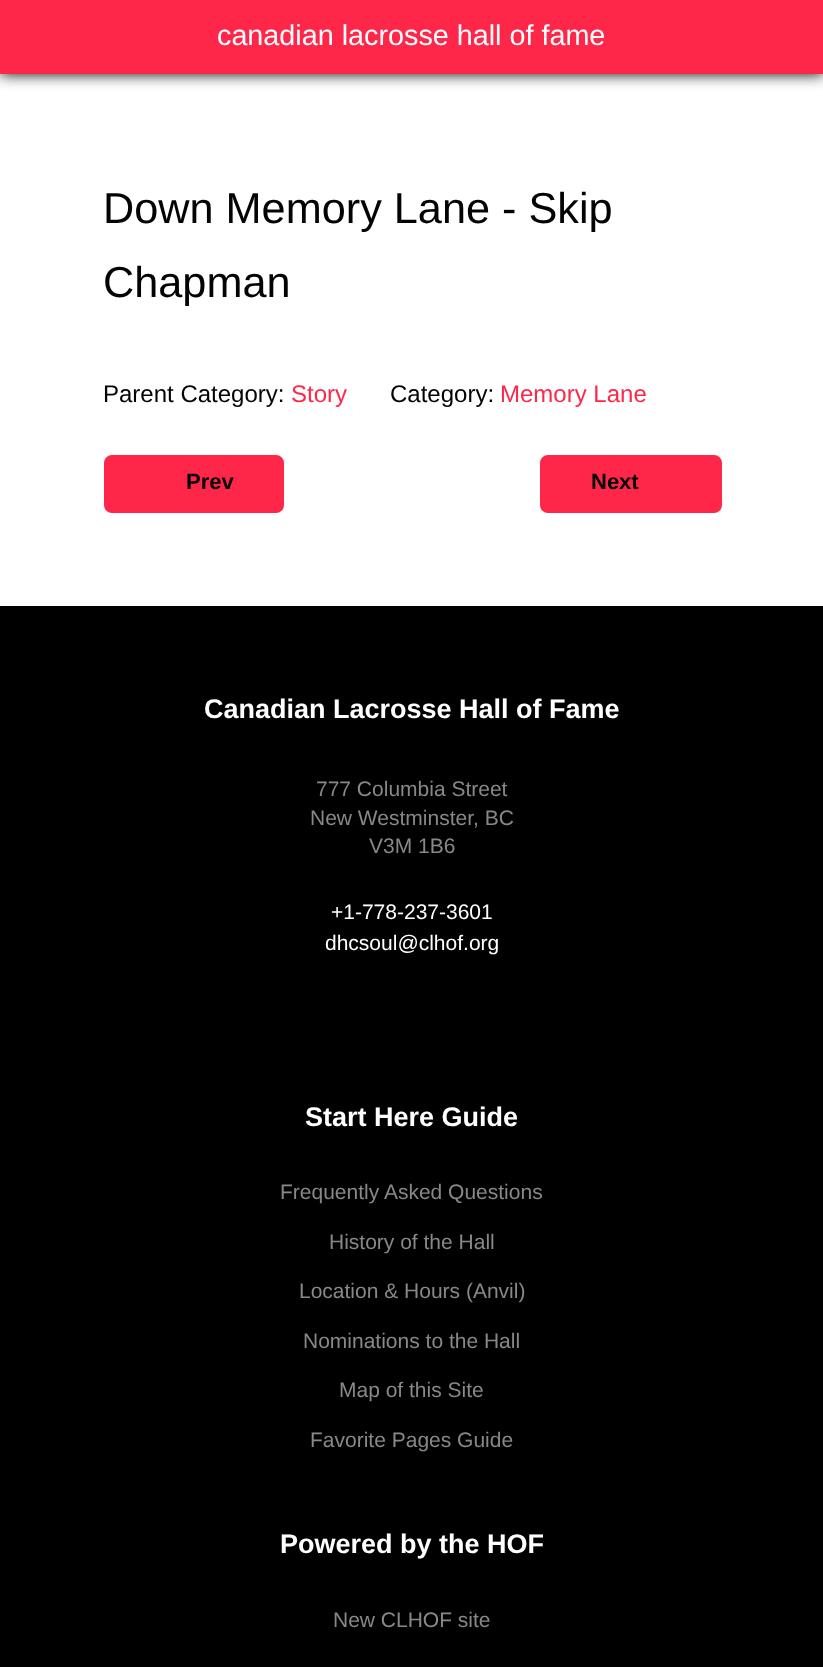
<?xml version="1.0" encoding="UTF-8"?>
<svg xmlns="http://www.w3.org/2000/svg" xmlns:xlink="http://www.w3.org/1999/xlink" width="823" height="1667">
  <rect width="100%" height="100%" fill="#ffffff" />
  <rect width="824" height="74" fill="#000000" filter="blur(7.5px)" />
  <rect width="823" height="74" fill="#ff2749" />
  <rect x="105.5" y="456.5" width="177" height="55" rx="6.5" fill="#ff2749" stroke="#ff2749" stroke-width="3" />
  <rect x="541.5" y="456.5" width="179" height="55" rx="6.5" fill="#ff2749" stroke="#ff2749" stroke-width="3" />
  <rect y="606" width="823" height="1061" fill="#000000" />
  <text x="217" y="45" style="font-family: Liberation Sans; font-size: 28.75px; fill: #ffffff">canadian lacrosse hall of fame</text>
  <text x="103" y="223" style="font-family: Liberation Sans; font-size: 43.25px; fill: #030303">Down Memory Lane - Skip</text>
  <text x="103" y="297" style="font-family: Liberation Sans; font-size: 43.25px; fill: #030303">Chapman</text>
  <text x="103" y="402" style="font-family: Liberation Sans; font-size: 24px; fill: #030303">Parent Category:</text>
  <text x="291" y="402" style="font-family: Liberation Sans; font-size: 24px; fill: #ff2749">Story</text>
  <text x="390" y="402" style="font-family: Liberation Sans; font-size: 24px; fill: #030303">Category:</text>
  <text x="500" y="402" style="font-family: Liberation Sans; font-size: 24px; fill: #ff2749">Memory Lane</text>
  <text x="186" y="489" style="font-family: Liberation Sans; font-size: 22px; font-weight: bold; fill: #030303">Prev</text>
  <text x="591" y="489" style="font-family: Liberation Sans; font-size: 22px; font-weight: bold; fill: #030303">Next</text>
  <text x="204" y="718" style="font-family: Liberation Sans; font-size: 27px; font-weight: bold; fill: #ffffff">Canadian Lacrosse Hall of Fame</text>
  <text x="316" y="796" style="font-family: Liberation Sans; font-size: 21px; fill: #888888">777 Columbia Street</text>
  <text x="310" y="825" style="font-family: Liberation Sans; font-size: 21px; fill: #888888">New Westminster, BC</text>
  <text x="369" y="853" style="font-family: Liberation Sans; font-size: 21px; fill: #888888">V3M 1B6</text>
  <text x="331" y="919" style="font-family: Liberation Sans; font-size: 21px; fill: #ffffff">+1-778-237-3601</text>
  <text x="325" y="950" style="font-family: Liberation Sans; font-size: 21px; fill: #ffffff">dhcsoul@clhof.org</text>
  <text x="305" y="1126" style="font-family: Liberation Sans; font-size: 27px; font-weight: bold; fill: #ffffff">Start Here Guide</text>
  <text x="280" y="1199" style="font-family: Liberation Sans; font-size: 21px; fill: #888888">Frequently Asked Questions</text>
  <text x="329" y="1249" style="font-family: Liberation Sans; font-size: 21px; fill: #888888">History of the Hall</text>
  <text x="299" y="1298" style="font-family: Liberation Sans; font-size: 21px; fill: #888888">Location &amp; Hours (Anvil)</text>
  <text x="303" y="1348" style="font-family: Liberation Sans; font-size: 21px; fill: #888888">Nominations to the Hall</text>
  <text x="339" y="1397" style="font-family: Liberation Sans; font-size: 21px; fill: #888888">Map of this Site</text>
  <text x="310" y="1447" style="font-family: Liberation Sans; font-size: 21px; fill: #888888">Favorite Pages Guide</text>
  <text x="280" y="1553" style="font-family: Liberation Sans; font-size: 27px; font-weight: bold; fill: #ffffff">Powered by the HOF</text>
  <text x="333" y="1627" style="font-family: Liberation Sans; font-size: 21px; fill: #888888">New CLHOF site</text>
</svg>
